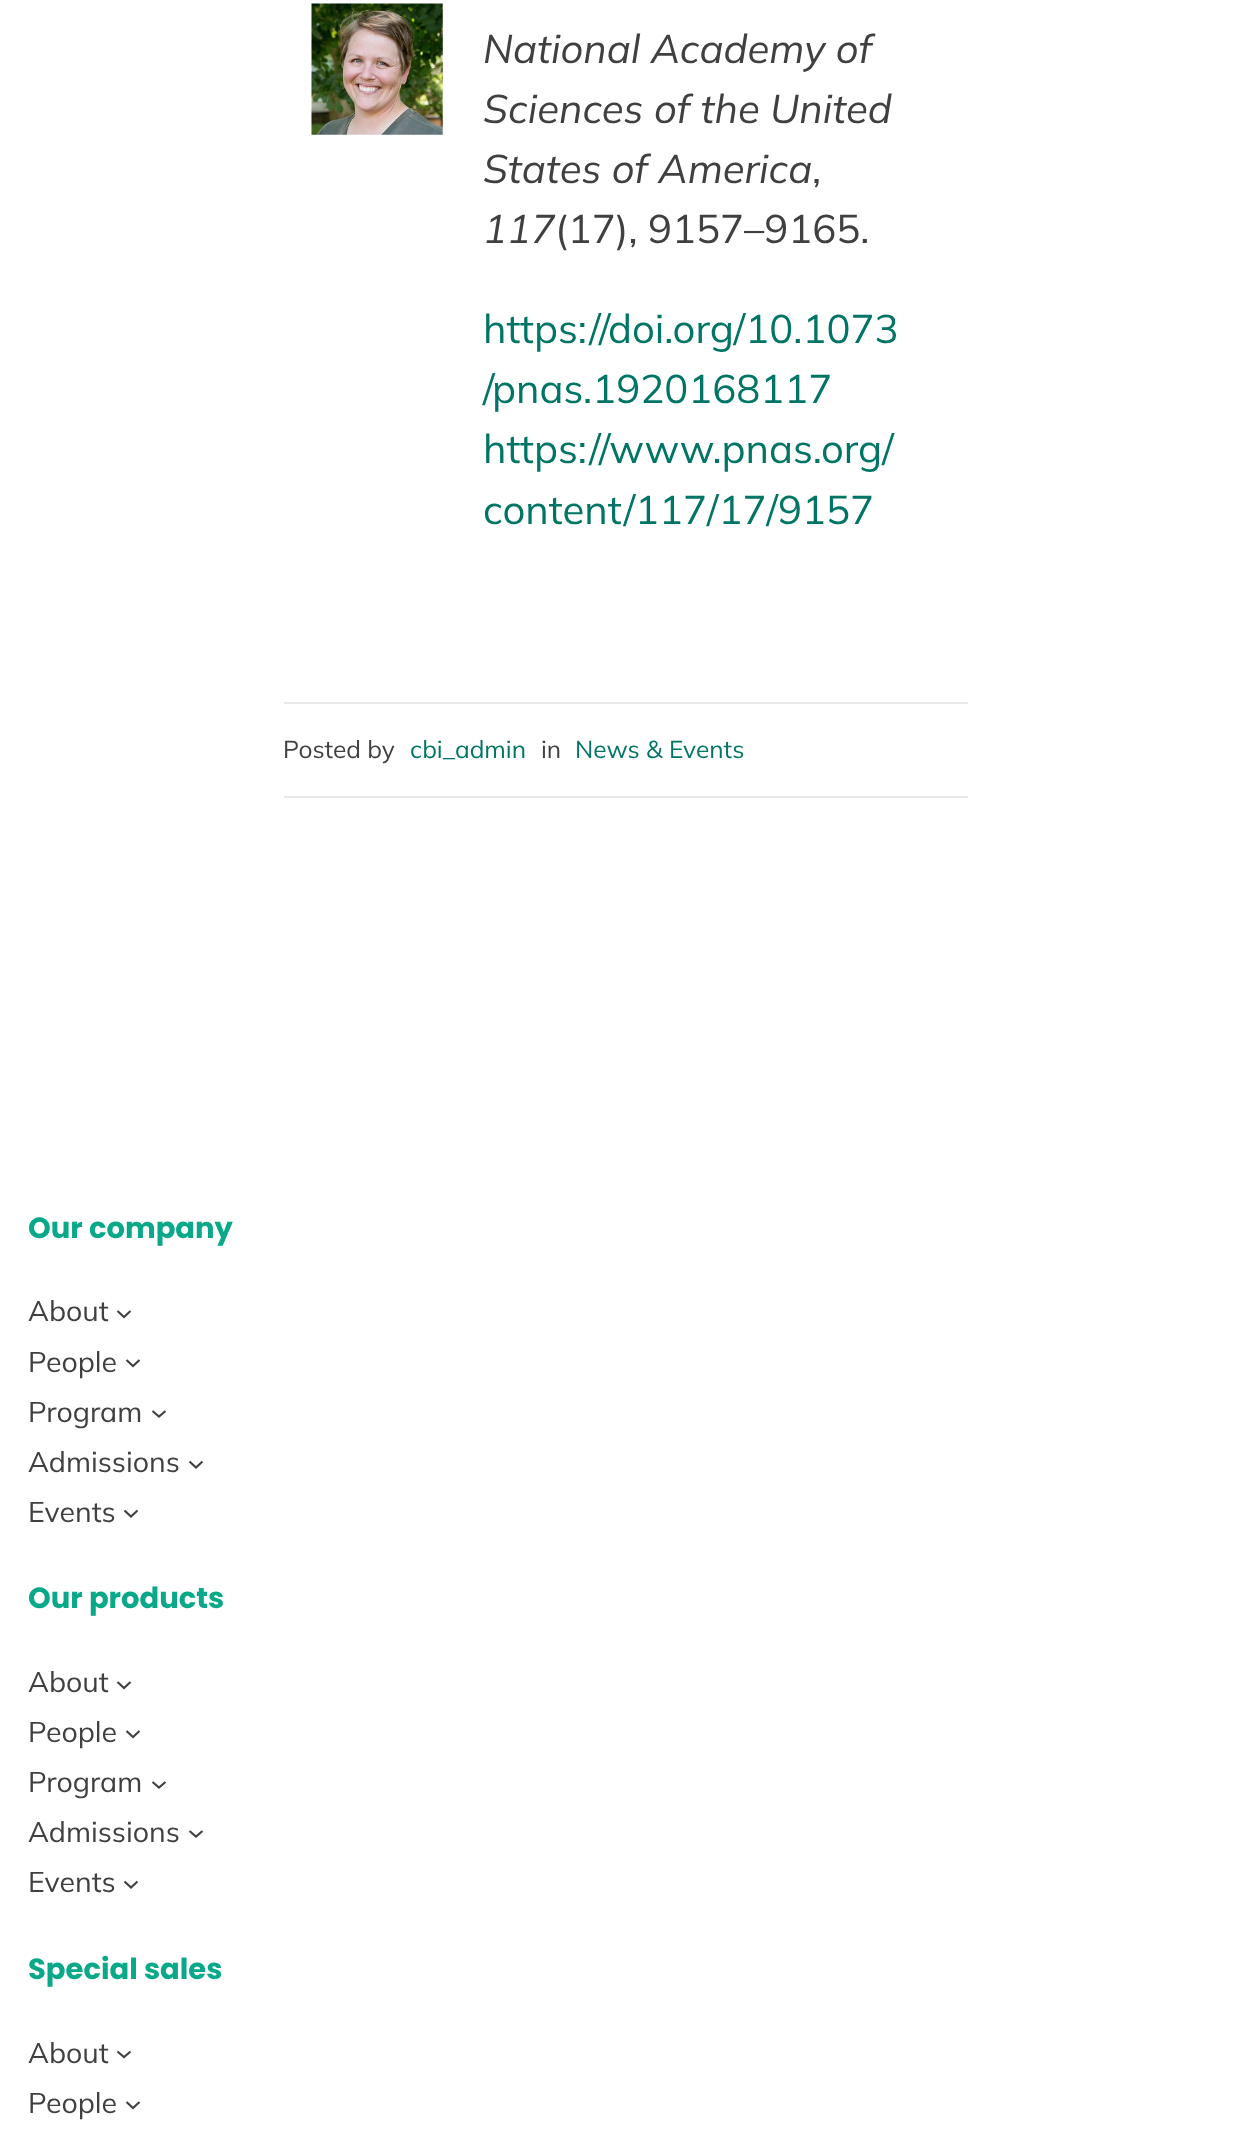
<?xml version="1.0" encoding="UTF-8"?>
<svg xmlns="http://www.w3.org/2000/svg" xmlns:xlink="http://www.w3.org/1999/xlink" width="1250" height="2131">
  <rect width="100%" height="100%" fill="#ffffff" />
  <image x="311" y="3" width="132" height="132" xlink:href="image1.png" />
  <rect x="284" y="702" width="684" height="2" fill="#e8e8e8" />
  <rect x="284" y="796" width="684" height="2" fill="#e8e8e8" />
  <path d="M 117.5 1311 l 6.5 6 l 6.5 -6" fill="none" stroke="#404040" stroke-width="2.1" />
  <path d="M 126.5 1360 l 6.5 6 l 6.5 -6" fill="none" stroke="#404040" stroke-width="2.1" />
  <path d="M 152.5 1411 l 6.5 5.5 l 6.5 -5.5" fill="none" stroke="#404040" stroke-width="2.1" />
  <path d="M 189.5 1461.5 l 6.5 6 l 6.5 -6" fill="none" stroke="#404040" stroke-width="2.1" />
  <path d="M 124.5 1510.5 l 6.5 6 l 6.5 -6" fill="none" stroke="#404040" stroke-width="2.1" />
  <path d="M 117.5 1682 l 6.5 6 l 6.5 -6" fill="none" stroke="#404040" stroke-width="2.1" />
  <path d="M 126.5 1731 l 6.5 6 l 6.5 -6" fill="none" stroke="#404040" stroke-width="2.1" />
  <path d="M 152.5 1782 l 6.5 5.5 l 6.5 -5.5" fill="none" stroke="#404040" stroke-width="2.1" />
  <path d="M 189.5 1831 l 6.5 5.5 l 6.5 -5.5" fill="none" stroke="#404040" stroke-width="2.1" />
  <path d="M 124.5 1881.5 l 6.5 6 l 6.5 -6" fill="none" stroke="#404040" stroke-width="2.1" />
  <path d="M 117.5 2051.5 l 6.5 5.5 l 6.5 -5.5" fill="none" stroke="#404040" stroke-width="2.1" />
  <path d="M 126.5 2102 l 6.5 6 l 6.5 -6" fill="none" stroke="#404040" stroke-width="2.1" />
  <text x="483" y="63" style="font-family: Mulish; font-size: 40px; font-style: italic; fill: #404040">National Academy of</text>
  <text x="483" y="123" style="font-family: Mulish; font-size: 40px; font-style: italic; fill: #404040">Sciences of the United</text>
  <text x="483" y="183" style="font-family: Mulish; font-size: 40px; font-style: italic; fill: #404040">States of America</text>
  <text x="812" y="183" style="font-family: Mulish; font-size: 40px; fill: #404040">,</text>
  <text x="483" y="243" style="font-family: Mulish; font-size: 40px; font-style: italic; fill: #404040">117</text>
  <text x="555" y="243" style="font-family: Mulish; font-size: 40px; fill: #404040">(17), 9157–9165.</text>
  <text x="483" y="343" style="font-family: Mulish; font-size: 40px; fill: #007565">https://doi.org/10.1073</text>
  <text x="483" y="403" style="font-family: Mulish; font-size: 40px; fill: #007565">/pnas.1920168117</text>
  <text x="483" y="463" style="font-family: Mulish; font-size: 40px; fill: #007565">https://www.pnas.org/</text>
  <text x="483" y="524" style="font-family: Mulish; font-size: 40px; fill: #007565">content/117/17/9157</text>
  <text x="283" y="758" style="font-family: Mulish; font-size: 24.5px; fill: #404040">Posted by</text>
  <text x="410" y="758" style="font-family: Mulish; font-size: 24.5px; fill: #007565">cbi_admin</text>
  <text x="541" y="758" style="font-family: Mulish; font-size: 24.5px; fill: #404040">in</text>
  <text x="575" y="758" style="font-family: Mulish; font-size: 24.5px; fill: #007565">News &amp; Events</text>
  <text x="28" y="1238" style="font-family: Poppins; font-size: 29px; font-weight: bold; fill: #08a889">Our company</text>
  <text x="28" y="1321" style="font-family: Mulish; font-size: 28.5px; fill: #404040">About</text>
  <text x="28" y="1372" style="font-family: Mulish; font-size: 28.5px; fill: #404040">People</text>
  <text x="28" y="1422" style="font-family: Mulish; font-size: 28.5px; fill: #404040">Program</text>
  <text x="28" y="1472" style="font-family: Mulish; font-size: 28.5px; fill: #404040">Admissions</text>
  <text x="28" y="1522" style="font-family: Mulish; font-size: 28.5px; fill: #404040">Events</text>
  <text x="28" y="1608" style="font-family: Poppins; font-size: 29px; font-weight: bold; fill: #08a889">Our products</text>
  <text x="28" y="1692" style="font-family: Mulish; font-size: 28.5px; fill: #404040">About</text>
  <text x="28" y="1742" style="font-family: Mulish; font-size: 28.5px; fill: #404040">People</text>
  <text x="28" y="1792" style="font-family: Mulish; font-size: 28.5px; fill: #404040">Program</text>
  <text x="28" y="1842" style="font-family: Mulish; font-size: 28.5px; fill: #404040">Admissions</text>
  <text x="28" y="1892" style="font-family: Mulish; font-size: 28.5px; fill: #404040">Events</text>
  <text x="28" y="1979" style="font-family: Poppins; font-size: 29px; font-weight: bold; fill: #08a889">Special sales</text>
  <text x="28" y="2063" style="font-family: Mulish; font-size: 28.5px; fill: #404040">About</text>
  <text x="28" y="2113" style="font-family: Mulish; font-size: 28.5px; fill: #404040">People</text>
</svg>
